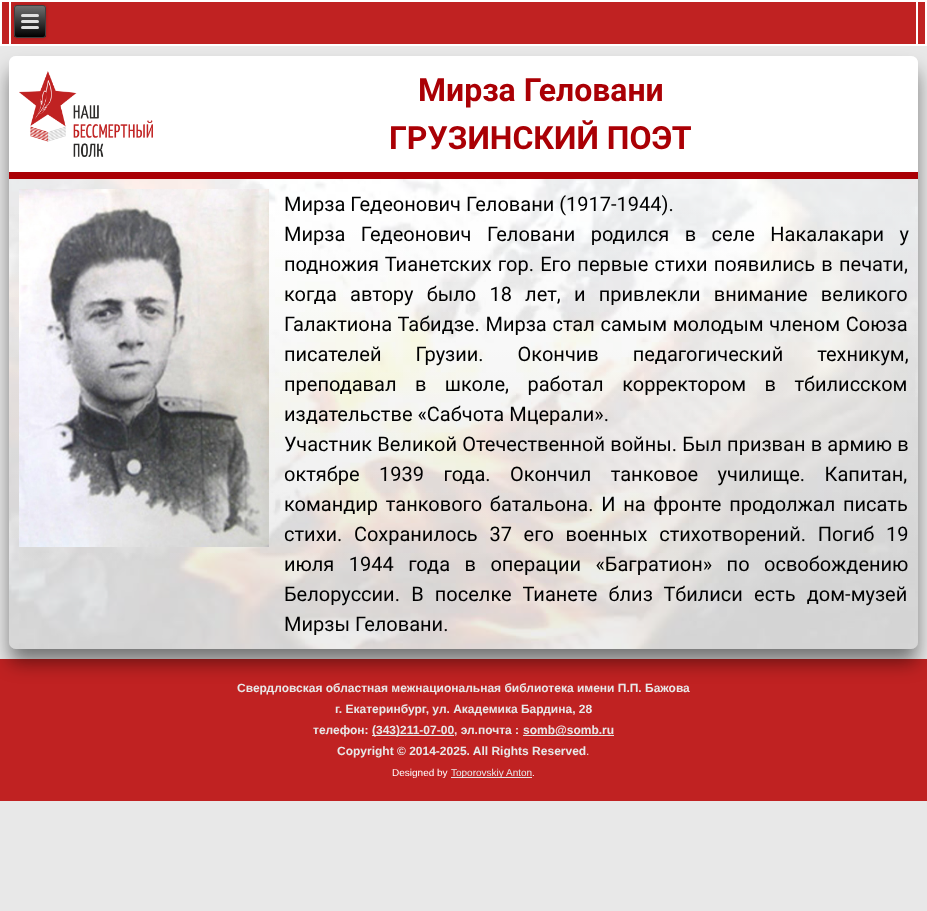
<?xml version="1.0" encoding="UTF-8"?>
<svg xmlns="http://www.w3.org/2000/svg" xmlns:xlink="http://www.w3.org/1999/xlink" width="927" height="911">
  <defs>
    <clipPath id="clip1"><rect x="14" y="5" width="32" height="33" rx="3" /></clipPath>
    <linearGradient id="g1" gradientUnits="userSpaceOnUse" x1="30" y1="6" x2="30" y2="37"><stop offset="0" stop-color="#707070" /><stop offset="1" stop-color="#000000" /></linearGradient>
    <linearGradient id="g2" gradientUnits="userSpaceOnUse" x1="463" y1="56" x2="464" y2="649"><stop offset="0.24" stop-color="#ffffff" /><stop offset="0.85" stop-color="#dbdbdb" /></linearGradient>
  </defs>
  <rect width="100%" height="100%" fill="#e8e8e8" />
  <rect x="1" y="1" width="925" height="44" fill="#c02222" stroke="#ffffff" stroke-width="2" />
  <rect y="659" width="927" height="142" fill="#c02222" />
  <rect x="10" y="71" width="907" height="591" rx="6" fill="#000000" fill-opacity="0.5" filter="blur(9.5px)" />
  <rect x="10" y="1" width="907" height="44" fill="none" stroke="#ffffff" stroke-width="2" />
  <rect x="14" y="5" width="32" height="33" rx="3" fill="#000000" fill-opacity="0.2" filter="blur(1.5px)" />
  <g clip-path="url(#clip1)">
    <rect x="14" y="6" width="32" height="31" fill="url(#g1)" />
  </g>
  <rect x="14.5" y="5.5" width="31" height="32" rx="2.5" fill="none" stroke="#404040" />
  <rect x="21" y="14" width="18" height="3" rx="1.5" fill="#e0e0e0" />
  <rect x="21" y="20" width="18" height="3" rx="1.5" fill="#e0e0e0" />
  <rect x="21" y="26" width="18" height="3" rx="1.5" fill="#e0e0e0" />
  <rect x="9" y="56" width="909" height="593" rx="7" fill="url(#g2)" />
  <image x="9" y="56" width="909" height="593" xlink:href="image1.png" />
  <path d="M 16 56 h 895 c 4 0 7 3 7 7 v 109 h -909 v -109 c 0 -4 3 -7 7 -7 z" fill="#ffffff" />
  <rect x="9" y="172" width="909" height="7" fill="#aa0005" />
  <image x="19" y="71" width="134" height="86" xlink:href="image2.png" />
  <image x="19" y="189" width="250" height="358" xlink:href="image3.png" />
  <rect x="372" y="735" width="82" height="1" fill="#e5e5e5" />
  <rect x="523" y="735" width="91" height="1" fill="#e5e5e5" />
  <rect x="451" y="777" width="81" height="1" fill="#e5e5e5" />
  <text x="418" y="101" style="font-family: Roboto; font-size: 32px; font-weight: bold; fill: #aa0005">Мирза Геловани</text>
  <text x="389" y="149" style="font-family: Roboto; font-size: 32px; font-weight: bold; fill: #aa0005">ГРУЗИНСКИЙ ПОЭТ</text>
  <text x="284" y="211" style="font-family: Roboto; font-size: 20px; fill: #000000">Мирза Гедеонович Геловани (1917-1944).</text>
  <text x="284" y="241" word-spacing="10.5" style="font-family: Roboto; font-size: 20px; fill: #000000">Мирза Гедеонович Геловани родился в селе Накалакари у</text>
  <text x="284" y="271" word-spacing="1.25" style="font-family: Roboto; font-size: 20px; fill: #000000">подножия Тианетских гор. Его первые стихи появились в печати,</text>
  <text x="284" y="301" word-spacing="8.25" style="font-family: Roboto; font-size: 20px; fill: #000000">когда автору было 18 лет, и привлекли внимание великого</text>
  <text x="284" y="331" word-spacing="0.75" style="font-family: Roboto; font-size: 20px; fill: #000000">Галактиона Табидзе. Мирза стал самым молодым членом Союза</text>
  <text x="284" y="361" word-spacing="29" style="font-family: Roboto; font-size: 20px; fill: #000000">писателей Грузии. Окончив педагогический техникум,</text>
  <text x="284" y="391" word-spacing="13.5" style="font-family: Roboto; font-size: 20px; fill: #000000">преподавал в школе, работал корректором в тбилисском</text>
  <text x="284" y="421" style="font-family: Roboto; font-size: 20px; fill: #000000">издательстве «Сабчота Мцерали».</text>
  <text x="284" y="451" word-spacing="0.25" style="font-family: Roboto; font-size: 20px; fill: #000000">Участник Великой Отечественной войны. Был призван в армию в</text>
  <text x="284" y="481" word-spacing="14.5" style="font-family: Roboto; font-size: 20px; fill: #000000">октябре 1939 года. Окончил танковое училище. Капитан,</text>
  <text x="284" y="511" word-spacing="2.75" style="font-family: Roboto; font-size: 20px; fill: #000000">командир танкового батальона. И на фронте продолжал писать</text>
  <text x="284" y="541" word-spacing="6.75" style="font-family: Roboto; font-size: 20px; fill: #000000">стихи. Сохранилось 37 его военных стихотворений. Погиб 19</text>
  <text x="284" y="571" word-spacing="9.5" style="font-family: Roboto; font-size: 20px; fill: #000000">июля 1944 года в операции «Багратион» по освобождению</text>
  <text x="284" y="601" word-spacing="6.25" style="font-family: Roboto; font-size: 20px; fill: #000000">Белоруссии. В поселке Тианете близ Тбилиси есть дом-музей</text>
  <text x="284" y="631" style="font-family: Roboto; font-size: 20px; fill: #000000">Мирзы Геловани.</text>
  <text x="237" y="692" style="font-family: Liberation Sans; font-size: 12px; font-weight: bold; fill: #e8e8e8">Свердловская областная межнациональная библиотека имени П.П. Бажова</text>
  <text x="335" y="713" style="font-family: Liberation Sans; font-size: 12px; font-weight: bold; fill: #e8e8e8">г. Екатеринбург, ул. Академика Бардина, 28</text>
  <text x="313" y="734" style="font-family: Liberation Sans; font-size: 12px; font-weight: bold; fill: #e8e8e8">телефон:</text>
  <text x="372" y="734" style="font-family: Liberation Sans; font-size: 12px; font-weight: bold; fill: #e8e8e8">(343)211-07-00</text>
  <text x="454" y="734" style="font-family: Liberation Sans; font-size: 12px; font-weight: bold; fill: #e8e8e8">, эл.почта :</text>
  <text x="523" y="734" style="font-family: Liberation Sans; font-size: 12px; font-weight: bold; fill: #e8e8e8">somb@somb.ru</text>
  <text x="337" y="755" style="font-family: Liberation Sans; font-size: 12px; font-weight: bold; fill: #e8e8e8">Copyright © 2014-2025. All Rights Reserved</text>
  <text x="586" y="755" style="font-family: Liberation Sans; font-size: 12px; fill: #e8e8e8">.</text>
  <text x="392" y="776" style="font-family: Liberation Sans; font-size: 10px; fill: #ffffff">Designed by</text>
  <text x="451" y="776" style="font-family: Liberation Sans; font-size: 10px; fill: #e8e8e8">Toporovskiy Anton</text>
  <text x="532" y="776" style="font-family: Liberation Sans; font-size: 10px; fill: #ffffff">.</text>
</svg>
